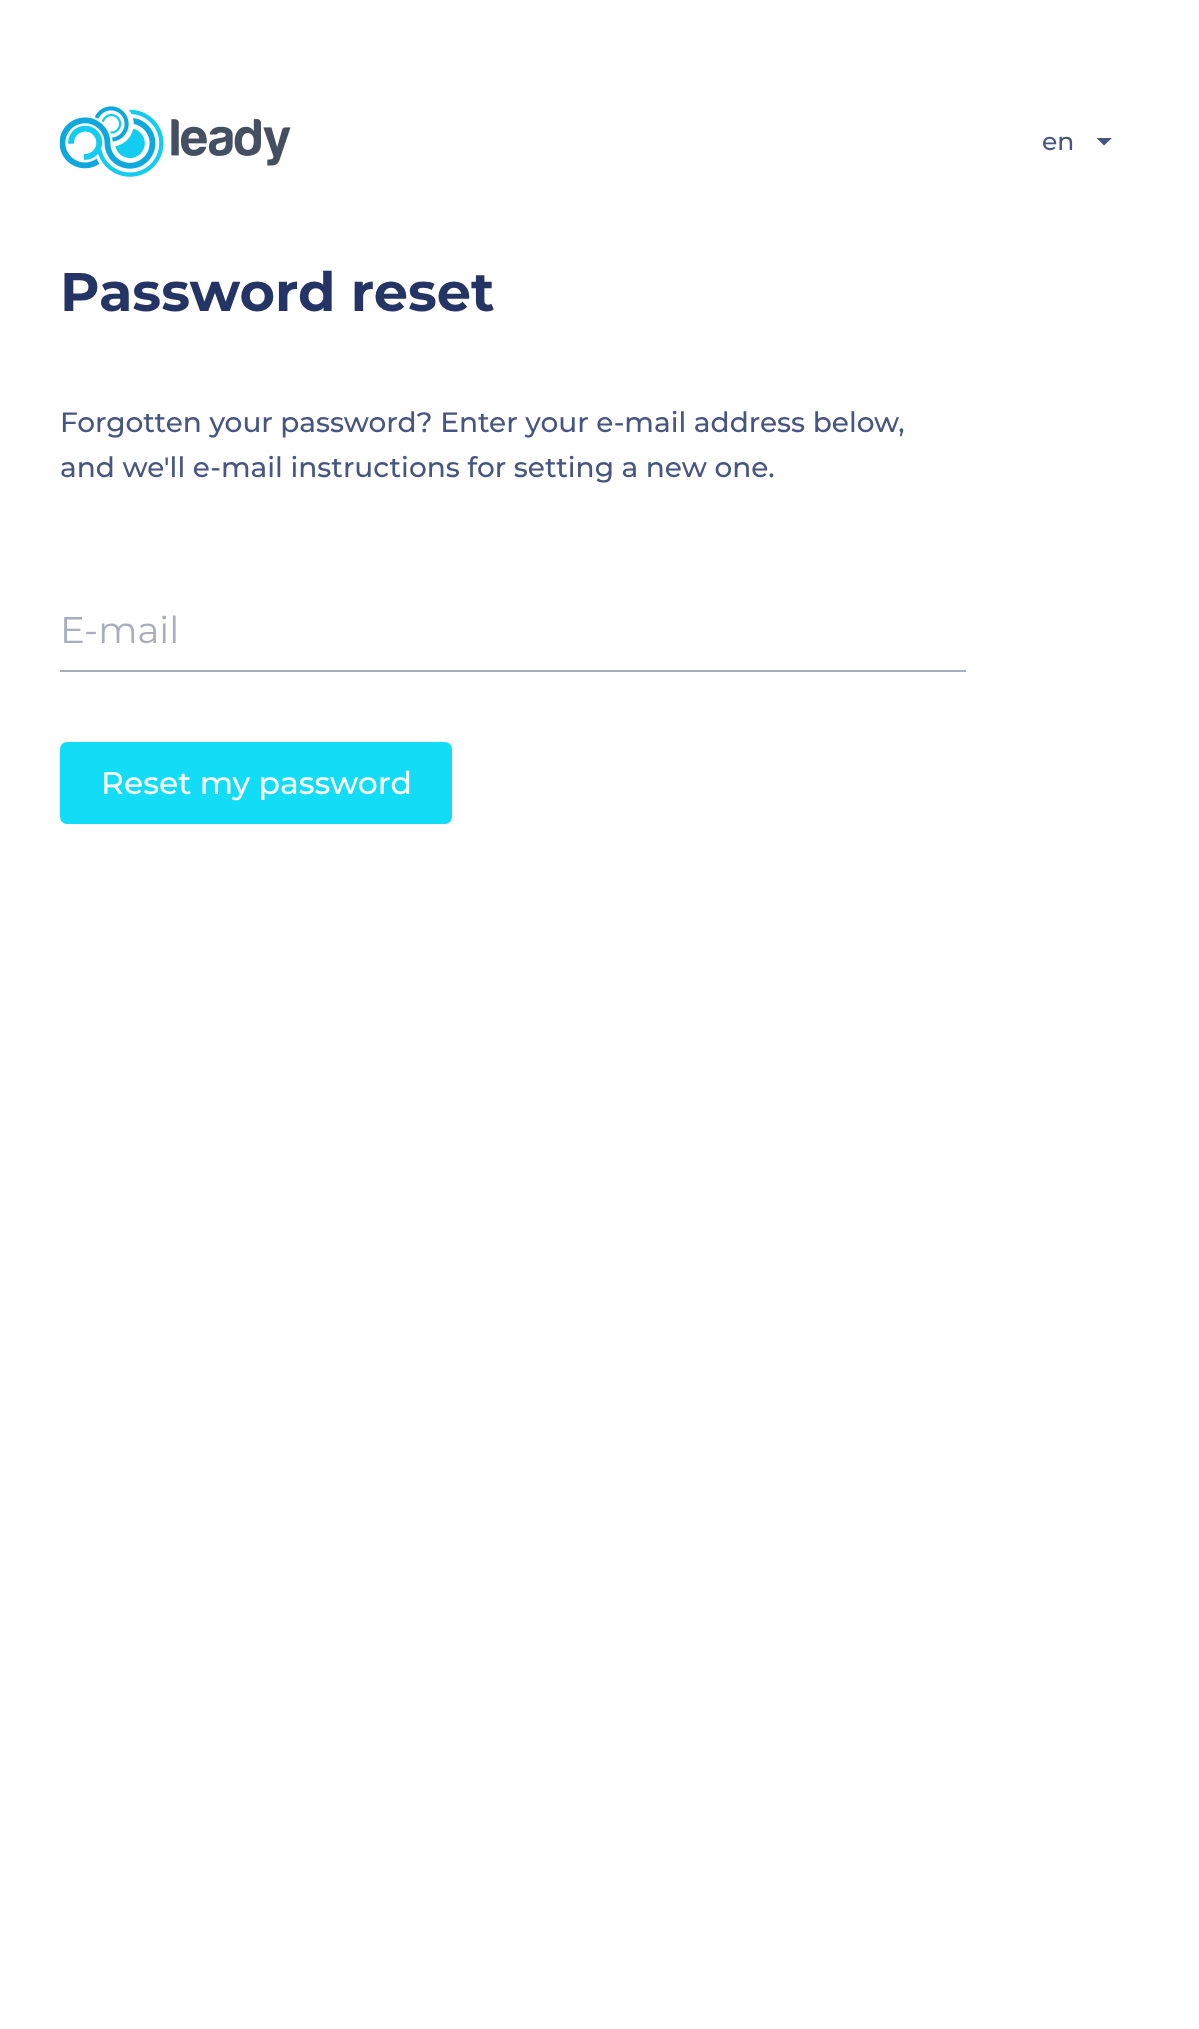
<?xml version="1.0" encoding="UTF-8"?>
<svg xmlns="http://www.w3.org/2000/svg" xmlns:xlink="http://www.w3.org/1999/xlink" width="1199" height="2029">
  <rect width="100%" height="100%" fill="#ffffff" />
  <image x="60" y="106" width="231" height="71" xlink:href="image1.png" />
  <path d="M 1096.5 138 l 7.5 7.5 l 8 -7.5 z" fill="#465581" />
  <rect x="60" y="670" width="906" height="2" fill="#a9aebc" />
  <rect x="60" y="742" width="392" height="82" rx="7" fill="#13dcf6" />
  <text x="1042" y="150" style="font-family: Montserrat; font-size: 25px; font-weight: 500; fill: #465581">en</text>
  <text x="60" y="311" style="font-family: Montserrat; font-size: 54.25px; font-weight: bold; fill: #243565">Password reset</text>
  <text x="60" y="432" style="font-family: Montserrat; font-size: 28px; font-weight: 500; fill: #465581">Forgotten your password? Enter your e-mail address below,</text>
  <text x="60" y="477" style="font-family: Montserrat; font-size: 28px; font-weight: 500; fill: #465581">and we'll e-mail instructions for setting a new one.</text>
  <text x="60" y="643" style="font-family: Montserrat; font-size: 37px; fill: #a9adbc">E-mail</text>
  <text x="101" y="794" style="font-family: Montserrat; font-size: 31.5px; font-weight: 500; fill: #ffffff">Reset my password</text>
</svg>
